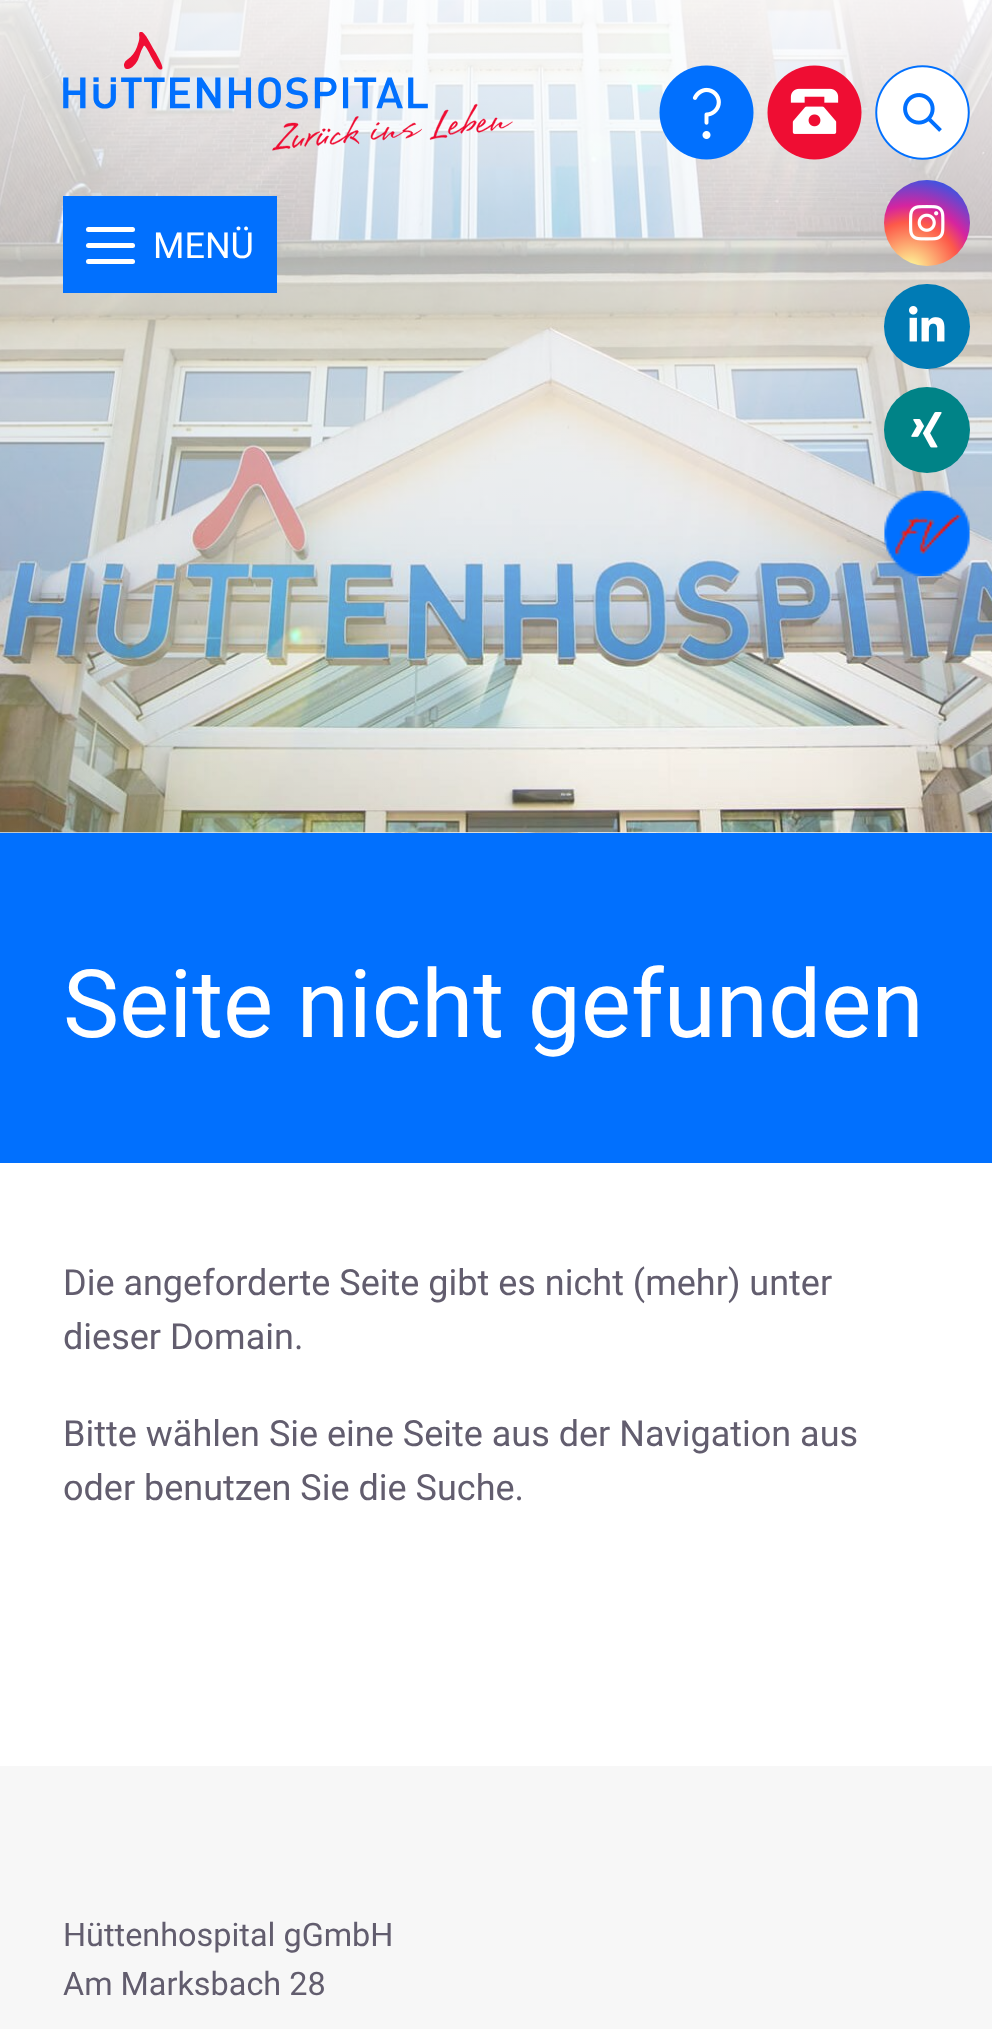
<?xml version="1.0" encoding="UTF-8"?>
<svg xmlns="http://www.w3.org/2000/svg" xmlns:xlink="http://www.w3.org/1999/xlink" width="992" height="2029">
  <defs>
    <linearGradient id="g1" gradientUnits="userSpaceOnUse" x1="496" y1="0" x2="496" y2="1015"><stop offset="0" stop-color="#ffffff" stop-opacity="0.9" /><stop offset="1" stop-color="#ffffff" stop-opacity="0" /></linearGradient>
    <radialGradient id="g2" gradientUnits="userSpaceOnUse" cx="910" cy="271" r="109"><stop offset="0" stop-color="#fdf497" /><stop offset="0.05" stop-color="#fdf497" /><stop offset="0.45" stop-color="#fd5949" /><stop offset="0.6" stop-color="#d6249f" /><stop offset="0.9" stop-color="#285aeb" /></radialGradient>
  </defs>
  <rect width="100%" height="100%" fill="#ffffff" />
  <image x="0" y="0" width="992" height="833" xlink:href="image1.png" />
  <rect width="992" height="833" fill="url(#g1)" />
  <image x="0" y="832" width="986" height="1" xlink:href="image2.png" />
  <image x="63" y="32" width="450" height="119" xlink:href="image3.png" />
  <image x="659" y="65" width="95" height="95" xlink:href="image4.png" />
  <image x="767" y="65" width="95" height="95" xlink:href="image5.png" />
  <image x="875" y="65" width="95" height="95" xlink:href="image6.png" />
  <rect x="63" y="196" width="214" height="97" fill="#0170fe" />
  <rect x="86" y="243" width="49" height="5" rx="2.5" fill="#ffffff" />
  <rect x="86" y="227" width="49" height="5" rx="2.5" fill="#ffffff" />
  <rect x="86" y="259" width="49" height="5" rx="2.5" fill="#ffffff" />
  <circle cx="927" cy="223" r="43" fill="url(#g2)" />
  <image x="909" y="205" width="36" height="36" xlink:href="image7.png" />
  <rect x="884" y="284" width="86" height="85" rx="42.5" fill="#007bb5" />
  <image x="909" y="306" width="36" height="36" xlink:href="image8.png" />
  <circle cx="927" cy="430" r="43" fill="#008387" />
  <image x="911" y="412" width="31" height="36" xlink:href="image9.png" />
  <image x="884" y="490" width="86" height="86" xlink:href="image10.png" />
  <rect y="833" width="992" height="330" fill="#0170fe" />
  <rect y="1766" width="992" height="263" fill="#f7f7f7" />
  <text x="153" y="258" style="font-family: Roboto; font-size: 36px; fill: #ffffff">MENÜ</text>
  <text x="63" y="1037" style="font-family: Roboto; font-size: 94.5px; fill: #ffffff">Seite nicht gefunden</text>
  <text x="63" y="1295" style="font-family: Roboto; font-size: 36px; fill: #625d6e">Die angeforderte Seite gibt es nicht (mehr) unter</text>
  <text x="63" y="1349" style="font-family: Roboto; font-size: 36px; fill: #625d6e">dieser Domain.</text>
  <text x="63" y="1446" style="font-family: Roboto; font-size: 36px; fill: #625d6e">Bitte wählen Sie eine Seite aus der Navigation aus</text>
  <text x="63" y="1500" style="font-family: Roboto; font-size: 36px; fill: #625d6e">oder benutzen Sie die Suche.</text>
  <text x="63" y="1946" style="font-family: Roboto; font-size: 32.4px; fill: #625d6e">Hüttenhospital gGmbH</text>
  <text x="63" y="1995" style="font-family: Roboto; font-size: 32.4px; fill: #625d6e">Am Marksbach 28</text>
</svg>
